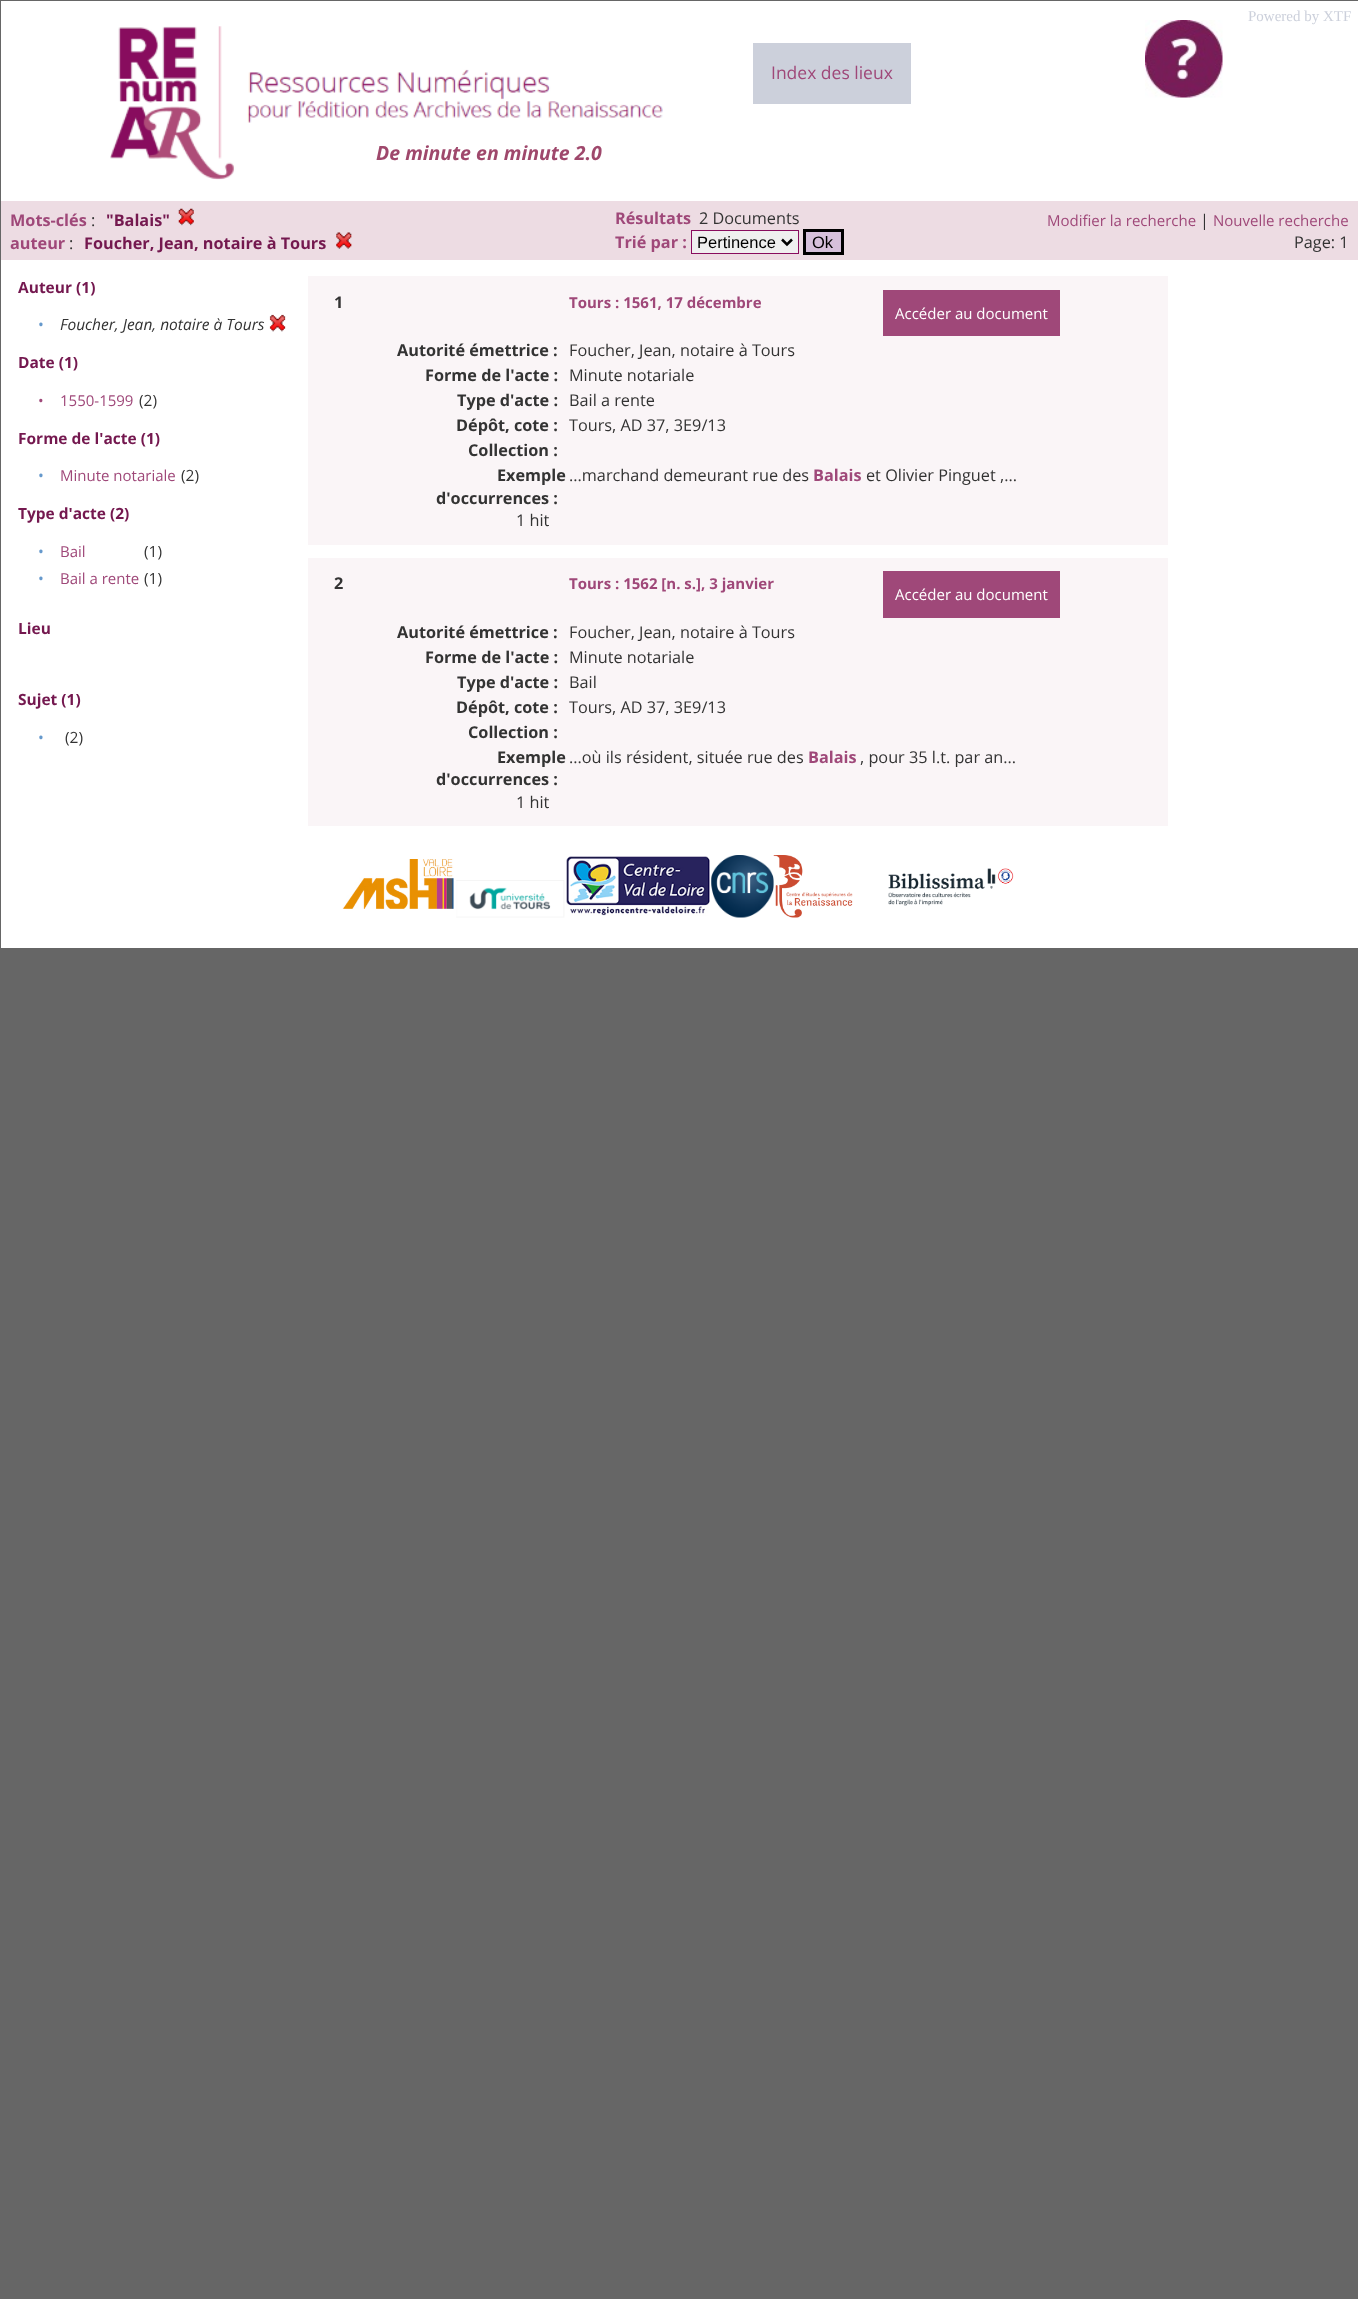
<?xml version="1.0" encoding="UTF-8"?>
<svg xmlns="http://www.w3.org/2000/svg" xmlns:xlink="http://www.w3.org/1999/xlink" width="1358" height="2299">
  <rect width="100%" height="100%" fill="#666666" />
  <rect x="1" y="1" width="1357" height="200" fill="#ffffff" />
  <image x="110" y="26" width="553" height="154" xlink:href="image1.png" />
  <rect x="753" y="43" width="158" height="61" fill="#ccd0db" />
  <image x="1145" y="20" width="78" height="78" xlink:href="image2.png" />
  <rect x="1" y="201" width="1357" height="59" fill="#eddce3" />
  <image x="178" y="208" width="16" height="18" xlink:href="image3.png" />
  <image x="336" y="232" width="16" height="17" xlink:href="image4.png" />
  <rect x="691.5" y="230.5" width="107" height="23" fill="#efefef" stroke="#880c5e" />
  <path d="M 782 239.5 l 5 5 l 5 -5" fill="none" stroke="#000000" stroke-width="2.5" />
  <rect x="804.5" y="230.5" width="38" height="23" fill="#d6c0db" stroke="#000000" stroke-width="3" />
  <rect x="1" y="260" width="1357" height="688" fill="#ffffff" />
  <image x="269" y="314" width="17" height="18" xlink:href="image5.png" />
  <rect x="308" y="276" width="860" height="269" fill="#faf5f7" />
  <rect x="883" y="290" width="177" height="46" fill="#9f4879" />
  <rect x="308" y="558" width="860" height="268" fill="#faf5f7" />
  <rect x="883" y="571" width="177" height="47" fill="#9f4879" />
  <image x="342" y="859" width="112" height="50" xlink:href="image6.png" />
  <image x="456" y="880" width="109" height="38" xlink:href="image7.png" />
  <image x="566" y="856" width="144" height="60" xlink:href="image8.png" />
  <image x="711" y="855" width="63" height="63" xlink:href="image9.png" />
  <image x="773" y="855" width="80" height="63" xlink:href="image10.png" />
  <image x="888" y="868" width="126" height="38" xlink:href="image11.png" />
  <text x="1248" y="21" style="font-family: Liberation Serif; font-size: 15px; fill: #ccd0db">Powered by XTF</text>
  <text x="771" y="79" style="font-family: Open Sans; font-size: 17.5px; fill: #9f4879">Index des lieux</text>
  <text x="376" y="160" style="font-family: Open Sans; font-size: 19.5px; font-weight: bold; font-style: italic; fill: #9f486c">De minute en minute 2.0</text>
  <text x="10" y="226" style="font-family: Open Sans; font-size: 16.25px; font-weight: bold; fill: #9f4879">Mots-clés</text>
  <text x="91" y="226" style="font-family: Open Sans; font-size: 16.25px; fill: #333333">:</text>
  <text x="106" y="226" style="font-family: Open Sans; font-size: 16.25px; font-weight: bold; fill: #74184f">"Balais"</text>
  <text x="10" y="249" style="font-family: Open Sans; font-size: 16.25px; font-weight: bold; fill: #9f4879">auteur</text>
  <text x="69" y="249" style="font-family: Open Sans; font-size: 16.25px; fill: #333333">:</text>
  <text x="84" y="249" style="font-family: Open Sans; font-size: 16.25px; font-weight: bold; fill: #74184f">Foucher, Jean, notaire à Tours</text>
  <text x="615" y="224" style="font-family: Open Sans; font-size: 16.25px; font-weight: bold; fill: #9f4879">Résultats</text>
  <text x="699" y="224" style="font-family: Open Sans; font-size: 16.25px; fill: #333333">2 Documents</text>
  <text x="615" y="248" style="font-family: Open Sans; font-size: 16.25px; font-weight: bold; fill: #9f4879">Trié par :</text>
  <text x="697" y="248" style="font-family: Liberation Sans; font-size: 16.5px; fill: #000000">Pertinence</text>
  <text x="812" y="248" style="font-family: Liberation Sans; font-size: 16.5px; fill: #000000">Ok</text>
  <text x="1047" y="226" style="font-family: Open Sans; font-size: 15px; fill: #9f4879">Modifier la recherche</text>
  <text x="1200" y="226" style="font-family: Open Sans; font-size: 16.25px; fill: #333333">|</text>
  <text x="1213" y="226" style="font-family: Open Sans; font-size: 15px; fill: #9f4879">Nouvelle recherche</text>
  <text x="1294" y="248" style="font-family: Open Sans; font-size: 16.25px; fill: #333333">Page: 1</text>
  <text x="18" y="293" style="font-family: Open Sans; font-size: 15.5px; font-weight: bold; fill: #74184f">Auteur (1)</text>
  <text x="38" y="330" style="font-family: Open Sans; font-size: 15.5px; fill: #6699cc">•</text>
  <text x="60" y="330" style="font-family: Open Sans; font-size: 15.5px; font-style: italic; fill: #333333">Foucher, Jean, notaire à Tours</text>
  <text x="18" y="368" style="font-family: Open Sans; font-size: 15.5px; font-weight: bold; fill: #74184f">Date (1)</text>
  <text x="38" y="406" style="font-family: Open Sans; font-size: 15px; fill: #9f4879">•</text>
  <text x="60" y="406" style="font-family: Open Sans; font-size: 15px; fill: #9f4879">1550-1599</text>
  <text x="139" y="406" style="font-family: Open Sans; font-size: 15.5px; fill: #333333">(2)</text>
  <text x="18" y="444" style="font-family: Open Sans; font-size: 15.5px; font-weight: bold; fill: #74184f">Forme de l'acte (1)</text>
  <text x="38" y="481" style="font-family: Open Sans; font-size: 15.5px; fill: #6699cc">•</text>
  <text x="60" y="481" style="font-family: Open Sans; font-size: 15px; fill: #9f4879">Minute notariale</text>
  <text x="181" y="481" style="font-family: Open Sans; font-size: 15.5px; fill: #333333">(2)</text>
  <text x="18" y="519" style="font-family: Open Sans; font-size: 15.5px; font-weight: bold; fill: #74184f">Type d'acte (2)</text>
  <text x="38" y="557" style="font-family: Open Sans; font-size: 15.5px; fill: #6699cc">•</text>
  <text x="60" y="557" style="font-family: Open Sans; font-size: 15px; fill: #9f4879">Bail</text>
  <text x="144" y="557" style="font-family: Open Sans; font-size: 15.5px; fill: #333333">(1)</text>
  <text x="38" y="584" style="font-family: Open Sans; font-size: 15.5px; fill: #6699cc">•</text>
  <text x="60" y="584" style="font-family: Open Sans; font-size: 15px; fill: #9f4879">Bail a rente</text>
  <text x="144" y="584" style="font-family: Open Sans; font-size: 15.5px; fill: #333333">(1)</text>
  <text x="18" y="634" style="font-family: Open Sans; font-size: 15.5px; font-weight: bold; fill: #74184f">Lieu</text>
  <text x="18" y="705" style="font-family: Open Sans; font-size: 15.5px; font-weight: bold; fill: #74184f">Sujet (1)</text>
  <text x="38" y="743" style="font-family: Open Sans; font-size: 15.5px; fill: #6699cc">•</text>
  <text x="65" y="743" style="font-family: Open Sans; font-size: 15.5px; fill: #333333">(2)</text>
  <text x="334" y="308" style="font-family: Open Sans; font-size: 16.25px; font-weight: bold; fill: #333333">1</text>
  <text x="569" y="308" style="font-family: Open Sans; font-size: 15px; font-weight: bold; fill: #9f4879">Tours : 1561, 17 décembre</text>
  <text x="895" y="319" style="font-family: Open Sans; font-size: 15px; fill: #ffffff">Accéder au document</text>
  <text x="397" y="356" style="font-family: Open Sans; font-size: 16.25px; font-weight: bold; fill: #333333">Autorité émettrice :</text>
  <text x="569" y="356" style="font-family: Open Sans; font-size: 16.25px; fill: #333333">Foucher, Jean, notaire à Tours</text>
  <text x="425" y="381" style="font-family: Open Sans; font-size: 16.25px; font-weight: bold; fill: #333333">Forme de l'acte :</text>
  <text x="569" y="381" style="font-family: Open Sans; font-size: 16.25px; fill: #333333">Minute notariale</text>
  <text x="457" y="406" style="font-family: Open Sans; font-size: 16.25px; font-weight: bold; fill: #333333">Type d'acte :</text>
  <text x="569" y="406" style="font-family: Open Sans; font-size: 16.25px; fill: #333333">Bail a rente</text>
  <text x="456" y="431" style="font-family: Open Sans; font-size: 16.25px; font-weight: bold; fill: #333333">Dépôt, cote :</text>
  <text x="569" y="431" style="font-family: Open Sans; font-size: 16.25px; fill: #333333">Tours, AD 37, 3E9/13</text>
  <text x="468" y="456" style="font-family: Open Sans; font-size: 16.25px; font-weight: bold; fill: #333333">Collection :</text>
  <text x="497" y="481" style="font-family: Open Sans; font-size: 16.25px; font-weight: bold; fill: #333333">Exemple</text>
  <text x="436" y="504" style="font-family: Open Sans; font-size: 16.25px; font-weight: bold; fill: #333333">d'occurrences :</text>
  <text x="516" y="526" style="font-family: Open Sans; font-size: 16.25px; fill: #333333">1 hit</text>
  <text x="569" y="481" style="font-family: Open Sans; font-size: 16.25px; fill: #333333">...marchand demeurant rue des</text>
  <text x="813" y="481" style="font-family: Open Sans; font-size: 16.25px; font-weight: bold; fill: #9f4879">Balais</text>
  <text x="866" y="481" style="font-family: Open Sans; font-size: 16.25px; fill: #333333">et Olivier Pinguet ,...</text>
  <text x="334" y="589" style="font-family: Open Sans; font-size: 16.25px; font-weight: bold; fill: #333333">2</text>
  <text x="569" y="589" style="font-family: Open Sans; font-size: 15px; font-weight: bold; fill: #9f4879">Tours : 1562 [n. s.], 3 janvier</text>
  <text x="895" y="600" style="font-family: Open Sans; font-size: 15px; fill: #ffffff">Accéder au document</text>
  <text x="397" y="638" style="font-family: Open Sans; font-size: 16.25px; font-weight: bold; fill: #333333">Autorité émettrice :</text>
  <text x="569" y="638" style="font-family: Open Sans; font-size: 16.25px; fill: #333333">Foucher, Jean, notaire à Tours</text>
  <text x="425" y="663" style="font-family: Open Sans; font-size: 16.25px; font-weight: bold; fill: #333333">Forme de l'acte :</text>
  <text x="569" y="663" style="font-family: Open Sans; font-size: 16.25px; fill: #333333">Minute notariale</text>
  <text x="457" y="688" style="font-family: Open Sans; font-size: 16.25px; font-weight: bold; fill: #333333">Type d'acte :</text>
  <text x="569" y="688" style="font-family: Open Sans; font-size: 16.25px; fill: #333333">Bail</text>
  <text x="456" y="713" style="font-family: Open Sans; font-size: 16.25px; font-weight: bold; fill: #333333">Dépôt, cote :</text>
  <text x="569" y="713" style="font-family: Open Sans; font-size: 16.25px; fill: #333333">Tours, AD 37, 3E9/13</text>
  <text x="468" y="738" style="font-family: Open Sans; font-size: 16.25px; font-weight: bold; fill: #333333">Collection :</text>
  <text x="497" y="763" style="font-family: Open Sans; font-size: 16.25px; font-weight: bold; fill: #333333">Exemple</text>
  <text x="436" y="785" style="font-family: Open Sans; font-size: 16.25px; font-weight: bold; fill: #333333">d'occurrences :</text>
  <text x="516" y="808" style="font-family: Open Sans; font-size: 16.25px; fill: #333333">1 hit</text>
  <text x="569" y="763" style="font-family: Open Sans; font-size: 16.25px; fill: #333333">...où ils résident, située rue des</text>
  <text x="808" y="763" style="font-family: Open Sans; font-size: 16.25px; font-weight: bold; fill: #9f4879">Balais</text>
  <text x="860" y="763" style="font-family: Open Sans; font-size: 16.25px; fill: #333333">, pour 35 l.t. par an...</text>
</svg>
